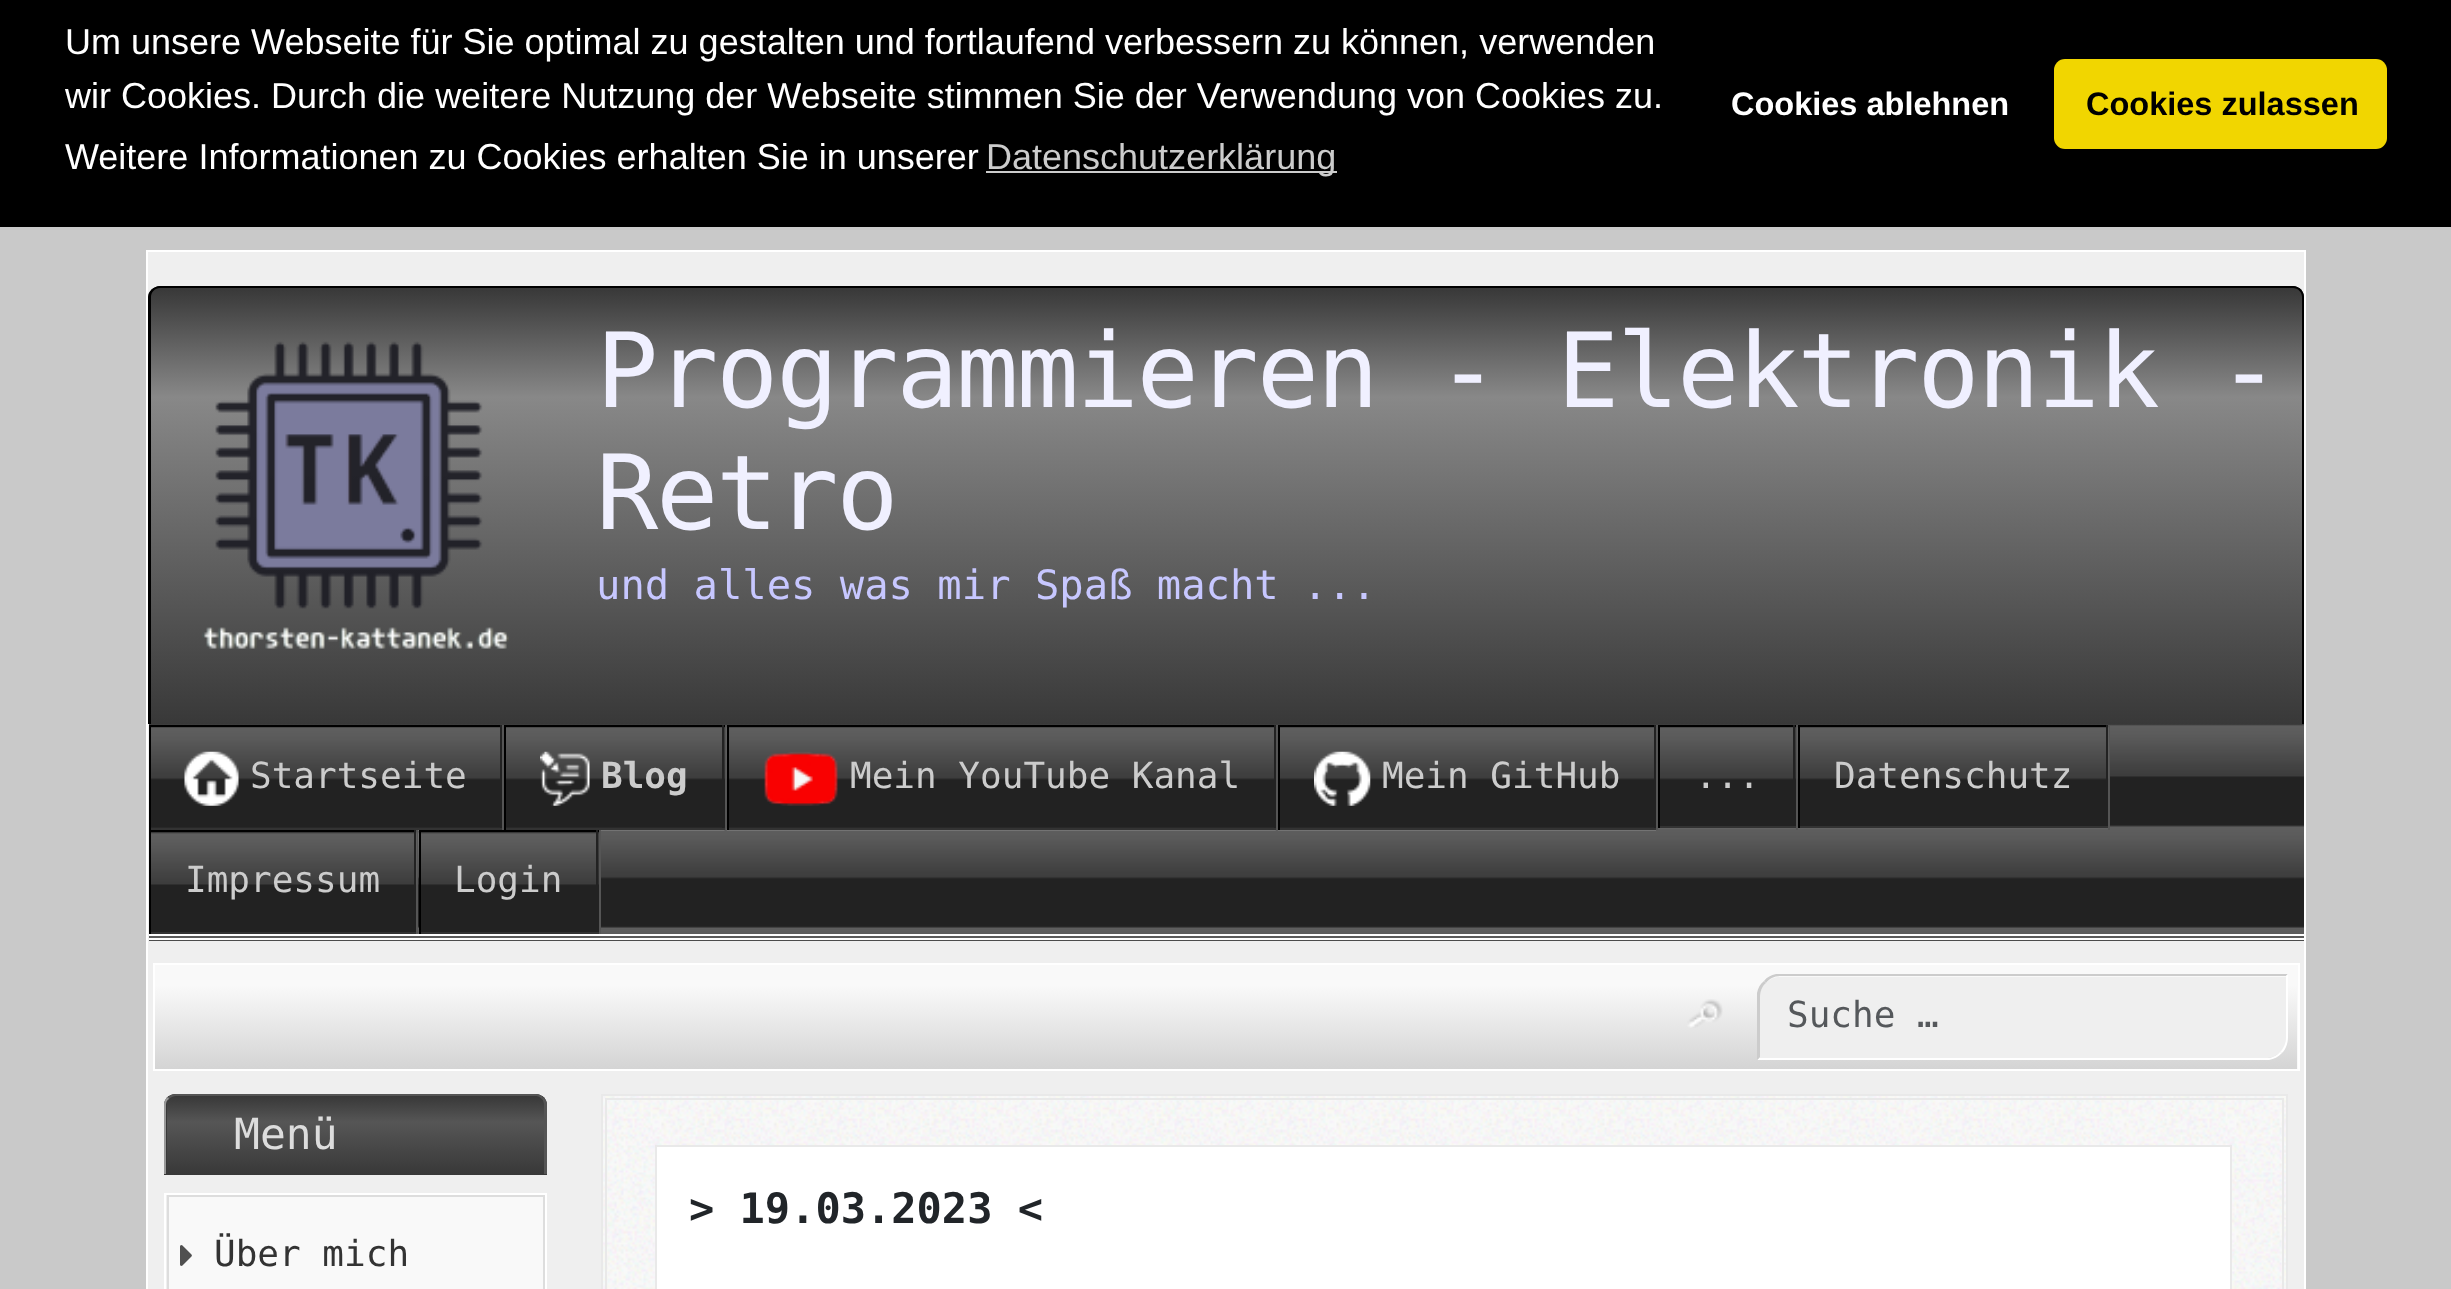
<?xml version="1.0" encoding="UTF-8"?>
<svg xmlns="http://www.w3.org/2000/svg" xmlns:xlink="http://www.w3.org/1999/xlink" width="2451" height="1289">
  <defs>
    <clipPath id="clip1"><path d="M 160 286 h 2133 c 6 0 11 5 11 11 v 428 h -2155 v -428 c 0 -6 5 -11 11 -11 z" /></clipPath>
    <linearGradient id="g1" gradientUnits="userSpaceOnUse" x1="1226" y1="288" x2="1226" y2="725"><stop offset="0" stop-color="#383838" /><stop offset="0.25" stop-color="#888888" /><stop offset="1" stop-color="#383838" /></linearGradient>
    <linearGradient id="g2" gradientUnits="userSpaceOnUse" x1="1226" y1="965" x2="1226" y2="1069"><stop offset="0" stop-color="#f9f9f9" /><stop offset="0.2" stop-color="#f9f9f9" /><stop offset="1" stop-color="#d4d4d4" /></linearGradient>
    <clipPath id="clip2"><path d="M 175 1094 h 361 c 6 0 11 5 11 11 v 70 h -383 v -70 c 0 -6 5 -11 11 -11 z" /></clipPath>
    <linearGradient id="g3" gradientUnits="userSpaceOnUse" x1="356" y1="1096" x2="356" y2="1175"><stop offset="0" stop-color="#383838" /><stop offset="0.33" stop-color="#565656" /><stop offset="1" stop-color="#383838" /></linearGradient>
  </defs>
  <rect width="100%" height="100%" fill="#c9c9c9" />
  <rect width="2451" height="227" fill="#000000" />
  <rect x="986" y="171" width="351" height="2" fill="#cccccc" />
  <rect x="2054" y="59" width="333" height="90" rx="11" fill="#f1d600" />
  <rect x="147" y="251" width="2158" height="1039" fill="#efefef" stroke="#ffffff" stroke-width="2" />
  <path d="M 160 286 h 2133 c 6 0 11 5 11 11 v 428 h -2155 v -428 c 0 -6 5 -11 11 -11 z" fill="#383838" />
  <g clip-path="url(#clip1)">
    <rect x="151" y="288" width="2151" height="437" fill="url(#g1)" />
  </g>
  <path d="M 160 286 h 2133 c 6 0 11 5 11 11 v 427 h -2156 v -427 c 0 -6 6 -11 12 -11 z m 0 2 h 2133 c 5 0 9 4 9 9 v 427 h -2151 v -427 c 0 -5 4 -9 9 -9 z" fill="#000000" fill-rule="evenodd" />
  <image x="202" y="341" width="307" height="308" xlink:href="image1.png" />
  <rect x="149" y="725" width="2155" height="216" fill="#222222" />
  <image x="149" y="724" width="2155" height="217" xlink:href="image2.png" />
  <rect x="149" y="934" width="2155" height="2" fill="#ffffff" />
  <rect x="149" y="938" width="2155" height="2" fill="#ffffff" />
  <rect x="502" y="725" width="2" height="105" fill="#555555" />
  <rect x="151" y="727" width="349" height="101" fill="#222222" />
  <image x="151" y="727" width="349" height="104" xlink:href="image3.png" />
  <rect x="149" y="725" width="353" height="2" fill="#000000" />
  <rect x="500" y="725" width="2" height="105" fill="#222222" />
  <rect x="149" y="828" width="353" height="2" fill="#333333" />
  <rect x="149" y="725" width="2" height="105" fill="#000000" />
  <image x="184" y="751" width="55" height="55" xlink:href="image4.png" />
  <rect x="725" y="725" width="2" height="105" fill="#555555" />
  <rect x="506" y="727" width="219" height="101" fill="#222222" />
  <image x="506" y="727" width="219" height="104" xlink:href="image5.png" />
  <rect x="504" y="725" width="221" height="2" fill="#000000" />
  <rect x="722" y="725" width="2" height="105" fill="#222222" />
  <rect x="504" y="828" width="221" height="2" fill="#333333" />
  <rect x="504" y="725" width="2" height="105" fill="#000000" />
  <image x="540" y="751" width="50" height="55" xlink:href="image6.png" />
  <rect x="1276" y="725" width="2" height="105" fill="#555555" />
  <rect x="729" y="727" width="545" height="101" fill="#222222" />
  <image x="726" y="727" width="550" height="104" xlink:href="image7.png" />
  <rect x="727" y="725" width="549" height="2" fill="#000000" />
  <rect x="1274" y="725" width="2" height="105" fill="#222222" />
  <rect x="727" y="828" width="549" height="2" fill="#333333" />
  <rect x="727" y="725" width="2" height="105" fill="#000000" />
  <image x="764" y="751" width="74" height="55" xlink:href="image8.png" />
  <rect x="1656" y="725" width="2" height="105" fill="#555555" />
  <rect x="1280" y="727" width="374" height="101" fill="#222222" />
  <image x="1278" y="727" width="378" height="104" xlink:href="image9.png" />
  <rect x="1278" y="725" width="378" height="2" fill="#000000" />
  <rect x="1654" y="725" width="2" height="105" fill="#222222" />
  <rect x="1278" y="828" width="378" height="2" fill="#333333" />
  <rect x="1278" y="725" width="2" height="105" fill="#000000" />
  <image x="1314" y="751" width="57" height="55" xlink:href="image10.png" />
  <rect x="1796" y="725" width="2" height="105" fill="#555555" />
  <rect x="1660" y="727" width="136" height="99" fill="#222222" />
  <image x="1658" y="727" width="138" height="102" xlink:href="image11.png" />
  <rect x="1658" y="725" width="138" height="2" fill="#000000" />
  <rect x="1793" y="725" width="2" height="103" fill="#222222" />
  <rect x="1658" y="826" width="138" height="2" fill="#333333" />
  <rect x="1658" y="725" width="2" height="103" fill="#000000" />
  <rect x="2108" y="725" width="2" height="105" fill="#555555" />
  <rect x="1800" y="727" width="306" height="99" fill="#222222" />
  <image x="1797" y="727" width="312" height="102" xlink:href="image12.png" />
  <rect x="1798" y="725" width="310" height="2" fill="#000000" />
  <rect x="2106" y="725" width="2" height="103" fill="#222222" />
  <rect x="1798" y="826" width="310" height="2" fill="#333333" />
  <rect x="1798" y="725" width="2" height="103" fill="#000000" />
  <rect x="416" y="830" width="2" height="104" fill="#555555" />
  <rect x="151" y="832" width="263" height="100" fill="#222222" />
  <image x="151" y="832" width="266" height="53" xlink:href="image13.png" />
  <rect x="149" y="830" width="267" height="2" fill="#000000" />
  <rect x="414" y="830" width="2" height="104" fill="#222222" />
  <rect x="149" y="932" width="267" height="2" fill="#333333" />
  <rect x="149" y="830" width="2" height="104" fill="#000000" />
  <rect x="599" y="830" width="2" height="104" fill="#555555" />
  <rect x="421" y="832" width="178" height="100" fill="#222222" />
  <image x="418" y="832" width="181" height="102" xlink:href="image14.png" />
  <rect x="419" y="830" width="180" height="2" fill="#000000" />
  <rect x="596" y="830" width="2" height="104" fill="#222222" />
  <rect x="419" y="932" width="180" height="2" fill="#333333" />
  <rect x="419" y="830" width="2" height="104" fill="#000000" />
  <rect x="2297" y="965" width="1" height="104" fill="#f9f9f9" />
  <rect x="155" y="965" width="2142" height="104" fill="url(#g2)" />
  <rect x="154" y="964" width="2145" height="106" fill="none" stroke="#ffffff" stroke-width="2" />
  <image x="1687" y="999" width="36" height="29" xlink:href="image15.png" />
  <path d="M 1780 977 h 506 v 61 c 0 11 -9 20 -20 20 h -506 v -61 c 0 -11 9 -20 20 -20 z" fill="#efefef" />
  <path d="M 1780 976 c -6 0 -11 3 -14 7 l -2 -2 c 3 -4 7 -6 12 -7 h 512 l -2 2 z" fill="#cccccc" />
  <path d="M 2288 974 v 63 c 0 6 -2 12 -6 16 l -2 -1 c 4 -4 6 -10 6 -15 v -61 z" fill="#ffffff" />
  <path d="M 2282 1053 c -4 4 -8 6 -13 7 h -512 l 3 -3 v 1 h 506 c 6 0 10 -2 14 -6 z" fill="#ffffff" />
  <path d="M 1757 1060 v -67 c 1 -5 3 -9 7 -12 l 2 2 c -4 3 -6 9 -6 14 v 60 z" fill="#cccccc" />
  <path d="M 175 1094 h 361 c 6 0 11 5 11 11 v 70 h -383 v -70 c 0 -6 5 -11 11 -11 z" fill="#383838" />
  <g clip-path="url(#clip2)">
    <rect x="167" y="1096" width="378" height="79" fill="url(#g3)" />
  </g>
  <path d="M 176 1094 h 360 c 3 0 5 1 7 3 l -1 2 c -2 -2 -4 -3 -6 -3 h -360 c -2 0 -5 1 -7 3 l -1 -2 c 2 -2 5 -3 8 -3 z" fill="#555555" />
  <path d="M 543 1097 c 2 1 3 3 4 6 v 71 h -3 v -69 c 0 -2 -1 -5 -2 -6 z" fill="#555555" />
  <path d="M 168 1097 l 1 2 c -2 1 -3 3 -3 6 v 69 h -2 v -71 c 1 -3 2 -5 4 -6 z" fill="#999999" />
  <rect x="165" y="1194" width="381" height="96" fill="none" stroke="#ffffff" stroke-width="2" />
  <rect x="168" y="1196" width="376" height="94" fill="#f9f9f9" stroke="#dddddd" stroke-width="2" />
  <image x="180" y="1245" width="12" height="21" xlink:href="image16.png" />
  <rect x="603" y="1096" width="1683" height="193" fill="#f9f9f9" />
  <image x="603" y="1096" width="1683" height="193" xlink:href="image17.png" />
  <rect x="602" y="1095" width="1685" height="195" fill="none" stroke="#e9e9e9" stroke-width="2" />
  <rect x="606" y="1099" width="1677" height="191" fill="none" stroke="#e9e9e9" stroke-width="2" />
  <rect x="656" y="1146" width="1575" height="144" fill="#ffffff" stroke="#e9e9e9" stroke-width="2" />
  <text x="65" y="54" style="font-family: Liberation Sans; font-size: 36px; fill: #ffffff">Um unsere Webseite für Sie optimal zu gestalten und fortlaufend verbessern zu können, verwenden</text>
  <text x="65" y="108" style="font-family: Liberation Sans; font-size: 36px; fill: #ffffff">wir Cookies. Durch die weitere Nutzung der Webseite stimmen Sie der Verwendung von Cookies zu.</text>
  <text x="65" y="169" style="font-family: Liberation Sans; font-size: 36px; fill: #ffffff">Weitere Informationen zu Cookies erhalten Sie in unserer</text>
  <text x="986" y="169" style="font-family: Liberation Sans; font-size: 36px; fill: #cccccc">Datenschutzerklärung</text>
  <text x="1731" y="115" style="font-family: Liberation Sans; font-size: 32.5px; font-weight: bold; fill: #ffffff">Cookies ablehnen</text>
  <text x="2086" y="115" style="font-family: Liberation Sans; font-size: 32.5px; font-weight: bold; fill: #000000">Cookies zulassen</text>
  <text x="596" y="407" style="font-family: DejaVu Sans Mono; font-size: 103.5px; letter-spacing: -2.25px; fill: #f0f0ff">Programmieren - Elektronik -</text>
  <text x="596" y="529" style="font-family: DejaVu Sans Mono; font-size: 103.5px; letter-spacing: -2.25px; fill: #f0f0ff">Retro</text>
  <text x="596" y="599" style="font-family: DejaVu Sans Mono; font-size: 40.5px; fill: #c7c7ff">und alles was mir Spaß macht ...</text>
  <text x="250" y="788" style="font-family: DejaVu Sans Mono; font-size: 36px; fill: #cccccc">Startseite</text>
  <text x="601" y="788" style="font-family: DejaVu Sans Mono; font-size: 36px; font-weight: bold; fill: #cccccc">Blog</text>
  <text x="850" y="788" style="font-family: DejaVu Sans Mono; font-size: 36px; fill: #cccccc">Mein YouTube Kanal</text>
  <text x="1382" y="788" style="font-family: DejaVu Sans Mono; font-size: 36px; fill: #cccccc">Mein GitHub</text>
  <text x="1695" y="788" style="font-family: DejaVu Sans Mono; font-size: 36px; fill: #cccccc">...</text>
  <text x="1834" y="788" style="font-family: DejaVu Sans Mono; font-size: 36px; fill: #cccccc">Datenschutz</text>
  <text x="185" y="892" style="font-family: DejaVu Sans Mono; font-size: 36px; fill: #cccccc">Impressum</text>
  <text x="454" y="892" style="font-family: DejaVu Sans Mono; font-size: 36px; fill: #cccccc">Login</text>
  <text x="1787" y="1027" style="font-family: DejaVu Sans Mono; font-size: 36px; fill: #55585b">Suche …</text>
  <text x="234" y="1149" style="font-family: DejaVu Sans Mono; font-size: 43px; fill: #dddddd">Menü</text>
  <text x="214" y="1266" style="font-family: DejaVu Sans Mono; font-size: 36px; fill: #333333">Über mich</text>
  <text x="689" y="1223" style="font-family: DejaVu Sans Mono; font-size: 42px; font-weight: bold; fill: #212529">&gt; 19.03.2023 &lt;</text>
</svg>
